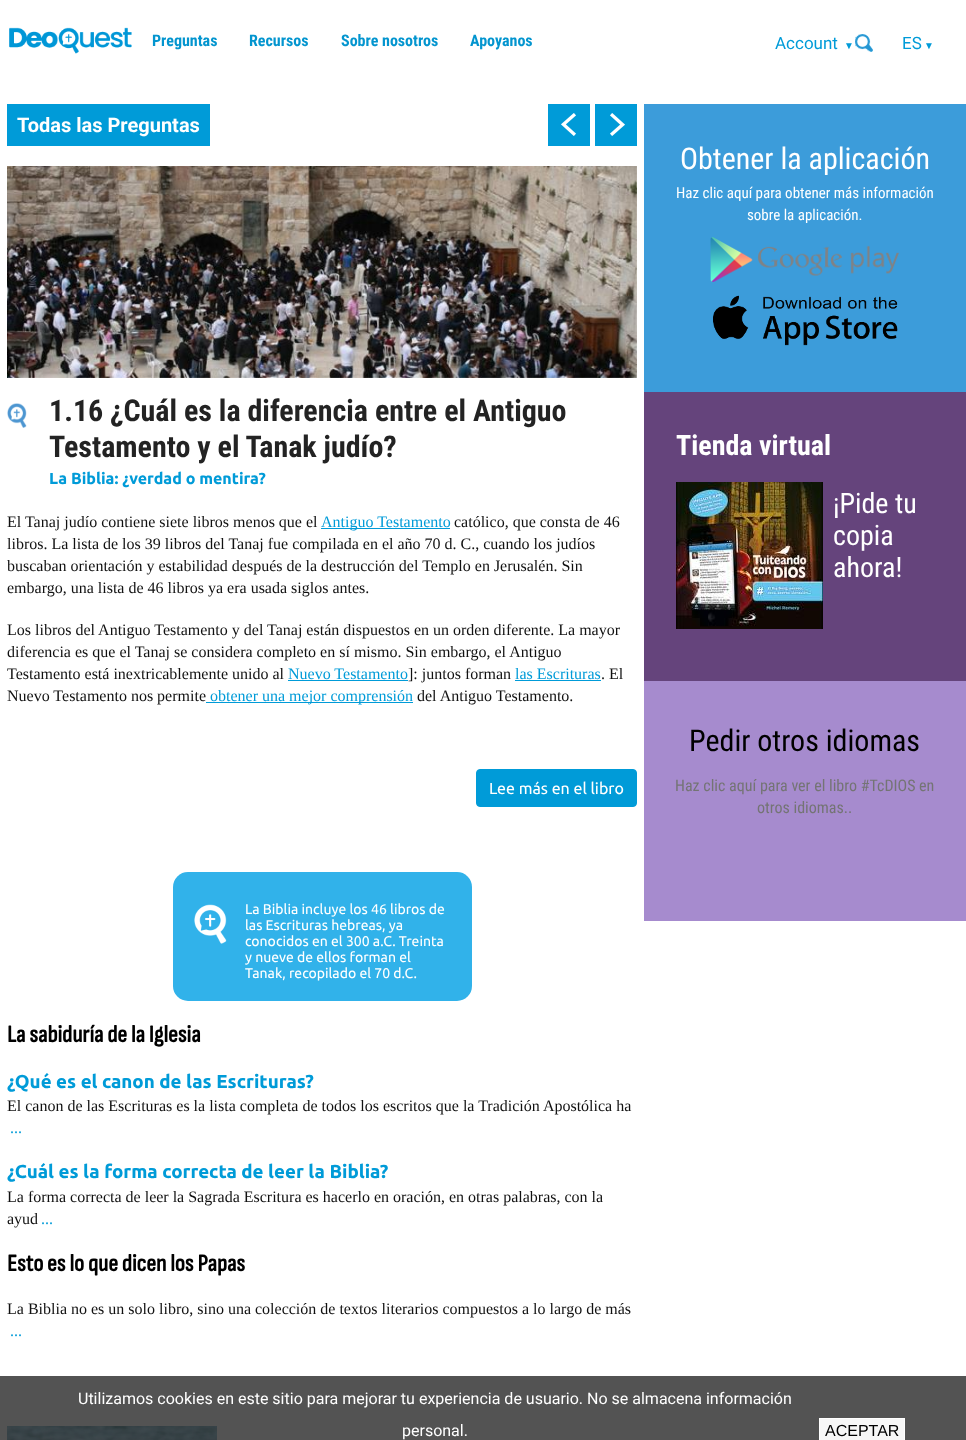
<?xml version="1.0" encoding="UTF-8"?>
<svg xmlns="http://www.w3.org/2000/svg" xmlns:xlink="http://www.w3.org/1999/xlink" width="966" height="1440">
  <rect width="100%" height="100%" fill="#ffffff" />
  <image x="9" y="27" width="123" height="27" xlink:href="image1.png" />
  <image x="855" y="34" width="18" height="18" xlink:href="image2.png" />
  <rect x="7" y="104" width="203" height="42" fill="#009bd8" />
  <rect x="548" y="104" width="42" height="42" fill="#009bd8" />
  <image x="561" y="113" width="15" height="23" xlink:href="image3.png" />
  <rect x="595" y="104" width="42" height="42" fill="#009bd8" />
  <image x="610" y="113" width="15" height="23" xlink:href="image4.png" />
  <image x="7" y="166" width="630" height="212" xlink:href="image5.png" />
  <image x="7" y="403" width="20" height="25" xlink:href="image6.png" />
  <rect x="321" y="528" width="129" height="1" fill="#009bd8" />
  <rect x="288" y="680" width="120" height="1" fill="#009bd8" />
  <rect x="515" y="680" width="86" height="1" fill="#009bd8" />
  <rect x="206" y="702" width="207" height="1" fill="#009bd8" />
  <rect x="476.5" y="769.5" width="160" height="37" rx="3.5" fill="#009bd8" stroke="#009bd8" />
  <rect x="173" y="872" width="299" height="129" rx="15" fill="#31b2ea" />
  <image x="194" y="904" width="33" height="40" xlink:href="image7.png" />
  <image x="7" y="1426" width="210" height="14" xlink:href="image8.png" />
  <rect x="644" y="104" width="322" height="288" fill="#3c9cda" />
  <image x="710" y="237" width="189" height="45" xlink:href="image9.png" />
  <image x="713" y="295" width="185" height="51" xlink:href="image10.png" />
  <rect x="644" y="392" width="322" height="289" fill="#65447c" />
  <image x="676" y="482" width="147" height="147" xlink:href="image11.png" />
  <rect x="644" y="681" width="322" height="240" fill="#a68bce" />
  <rect y="1376" width="966" height="64" fill="#191919" fill-opacity="0.75" />
  <rect x="819.5" y="1418.5" width="85" height="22" fill="#f7f7f7" stroke="#ffffff" />
  <text x="152" y="46" style="font-family: Roboto Condensed; font-size: 16px; font-weight: bold; fill: #0395cf">Preguntas</text>
  <text x="249" y="46" style="font-family: Roboto Condensed; font-size: 16px; font-weight: bold; fill: #0395cf">Recursos</text>
  <text x="341" y="46" style="font-family: Roboto Condensed; font-size: 16px; font-weight: bold; fill: #0395cf">Sobre nosotros</text>
  <text x="470" y="46" style="font-family: Roboto Condensed; font-size: 16px; font-weight: bold; fill: #0395cf">Apoyanos</text>
  <text x="775" y="49" style="font-family: Roboto; font-size: 17px; fill: #009bd8">Account</text>
  <text x="844" y="49" style="font-family: Liberation Sans; font-size: 10px; fill: #009bd8">▼</text>
  <text x="902" y="49" style="font-family: Roboto; font-size: 17px; fill: #009bd8">ES</text>
  <text x="924" y="49" style="font-family: Liberation Sans; font-size: 10px; fill: #009bd8">▼</text>
  <text x="17" y="132" style="font-family: Roboto; font-size: 20px; font-weight: bold; fill: #ffffff">Todas las Preguntas</text>
  <text x="49" y="421" style="font-family: Roboto Condensed; font-size: 30px; font-weight: bold; fill: #232323">1.16 ¿Cuál es la diferencia entre el Antiguo</text>
  <text x="49" y="457" style="font-family: Roboto Condensed; font-size: 30px; font-weight: bold; fill: #232323">Testamento y el Tanak judío?</text>
  <text x="49" y="484" style="font-family: Ubuntu; font-size: 16px; font-weight: bold; fill: #009bd8">La Biblia: ¿verdad o mentira?</text>
  <text x="7" y="527" style="font-family: Liberation Serif; font-size: 16px; fill: #111111">El Tanaj judío contiene siete libros menos que el</text>
  <text x="321" y="527" style="font-family: Liberation Serif; font-size: 16px; fill: #009bd8">Antiguo Testamento</text>
  <text x="454" y="527" style="font-family: Liberation Serif; font-size: 16px; fill: #111111">católico, que consta de 46</text>
  <text x="7" y="549" style="font-family: Liberation Serif; font-size: 16px; fill: #111111">libros. La lista de los 39 libros del Tanaj fue compilada en el año 70 d. C., cuando los judíos</text>
  <text x="7" y="571" style="font-family: Liberation Serif; font-size: 16px; fill: #111111">buscaban orientación y estabilidad después de la destrucción del Templo en Jerusalén. Sin</text>
  <text x="7" y="593" style="font-family: Liberation Serif; font-size: 16px; fill: #111111">embargo, una lista de 46 libros ya era usada siglos antes.</text>
  <text x="7" y="635" style="font-family: Liberation Serif; font-size: 16px; fill: #111111">Los libros del Antiguo Testamento y del Tanaj están dispuestos en un orden diferente. La mayor</text>
  <text x="7" y="657" style="font-family: Liberation Serif; font-size: 16px; fill: #111111">diferencia es que el Tanaj se considera completo en sí mismo. Sin embargo, el Antiguo</text>
  <text x="7" y="679" style="font-family: Liberation Serif; font-size: 16px; fill: #111111">Testamento está inextricablemente unido al</text>
  <text x="288" y="679" style="font-family: Liberation Serif; font-size: 16px; fill: #009bd8">Nuevo Testamento</text>
  <text x="408" y="679" style="font-family: Liberation Serif; font-size: 16px; fill: #111111">]: juntos forman</text>
  <text x="515" y="679" style="font-family: Liberation Serif; font-size: 16px; fill: #009bd8">las Escrituras</text>
  <text x="601" y="679" style="font-family: Liberation Serif; font-size: 16px; fill: #111111">. El</text>
  <text x="7" y="701" style="font-family: Liberation Serif; font-size: 16px; fill: #111111">Nuevo Testamento nos permite</text>
  <text x="210" y="701" style="font-family: Liberation Serif; font-size: 16px; fill: #009bd8">obtener una mejor comprensión</text>
  <text x="417" y="701" style="font-family: Liberation Serif; font-size: 16px; fill: #111111">del Antiguo Testamento.</text>
  <text x="489" y="794" style="font-family: Ubuntu; font-size: 16px; fill: #ffffff">Lee más en el libro</text>
  <text x="245" y="914" style="font-family: Ubuntu; font-size: 14px; fill: #ffffff">La Biblia incluye los 46 libros de</text>
  <text x="245" y="930" style="font-family: Ubuntu; font-size: 14px; fill: #ffffff">las Escrituras hebreas, ya</text>
  <text x="245" y="946" style="font-family: Ubuntu; font-size: 14px; fill: #ffffff">conocidos en el 300 a.C. Treinta</text>
  <text x="245" y="962" style="font-family: Ubuntu; font-size: 14px; fill: #ffffff">y nueve de ellos forman el</text>
  <text x="245" y="978" style="font-family: Ubuntu; font-size: 14px; fill: #ffffff">Tanak, recopilado el 70 d.C.</text>
  <text x="7" y="1042" style="font-family: Sofia Sans Condensed; font-size: 24px; font-weight: bold; fill: #000000">La sabiduría de la Iglesia</text>
  <text x="7" y="1088" style="font-family: Ubuntu; font-size: 18.75px; font-weight: bold; fill: #009bd8">¿Qué es el canon de las Escrituras?</text>
  <text x="7" y="1111" style="font-family: Liberation Serif; font-size: 16px; fill: #111111">El canon de las Escrituras es la lista completa de todos los escritos que la Tradición Apostólica ha</text>
  <text x="10" y="1133" style="font-family: Liberation Serif; font-size: 16px; fill: #009bd8">...</text>
  <text x="7" y="1178" style="font-family: Ubuntu; font-size: 18.75px; font-weight: bold; fill: #009bd8">¿Cuál es la forma correcta de leer la Biblia?</text>
  <text x="7" y="1202" style="font-family: Liberation Serif; font-size: 16px; fill: #111111">La forma correcta de leer la Sagrada Escritura es hacerlo en oración, en otras palabras, con la</text>
  <text x="7" y="1224" style="font-family: Liberation Serif; font-size: 16px; fill: #111111">ayud</text>
  <text x="41" y="1224" style="font-family: Liberation Serif; font-size: 16px; fill: #009bd8">...</text>
  <text x="7" y="1271" style="font-family: Sofia Sans Condensed; font-size: 24px; font-weight: bold; fill: #000000">Esto es lo que dicen los Papas</text>
  <text x="7" y="1314" style="font-family: Liberation Serif; font-size: 16px; fill: #111111">La Biblia no es un solo libro, sino una colección de textos literarios compuestos a lo largo de más</text>
  <text x="10" y="1336" style="font-family: Liberation Serif; font-size: 16px; fill: #009bd8">...</text>
  <text x="680" y="169" style="font-family: Roboto Condensed; font-size: 30px; fill: #ffffff">Obtener la aplicación</text>
  <text x="676" y="198" style="font-family: Roboto Condensed; font-size: 15px; fill: #ffffff">Haz clic aquí para obtener más información</text>
  <text x="747" y="220" style="font-family: Roboto Condensed; font-size: 15px; fill: #ffffff">sobre la aplicación.</text>
  <text x="676" y="455" style="font-family: Roboto Condensed; font-size: 28px; font-weight: bold; fill: #ffffff">Tienda virtual</text>
  <text x="833" y="513" style="font-family: Roboto Condensed; font-size: 28px; fill: #ffffff">¡Pide tu</text>
  <text x="833" y="545" style="font-family: Roboto Condensed; font-size: 28px; fill: #ffffff">copia</text>
  <text x="833" y="577" style="font-family: Roboto Condensed; font-size: 28px; fill: #ffffff">ahora!</text>
  <text x="689" y="751" style="font-family: Roboto Condensed; font-size: 30px; fill: #000000">Pedir otros idiomas</text>
  <text x="675" y="791" style="font-family: Roboto Condensed; font-size: 16px; fill: #747474">Haz clic aquí para ver el libro #TcDIOS en</text>
  <text x="757" y="813" style="font-family: Roboto Condensed; font-size: 16px; fill: #747474">otros idiomas..</text>
  <text x="78" y="1404" style="font-family: Roboto; font-size: 16px; fill: #ffffff">Utilizamos cookies en este sitio para mejorar tu experiencia de usuario. No se almacena información</text>
  <text x="402" y="1436" style="font-family: Roboto; font-size: 16px; fill: #ffffff">personal.</text>
  <text x="825" y="1436" style="font-family: Liberation Sans; font-size: 16px; fill: #000000">ACEPTAR</text>
</svg>
